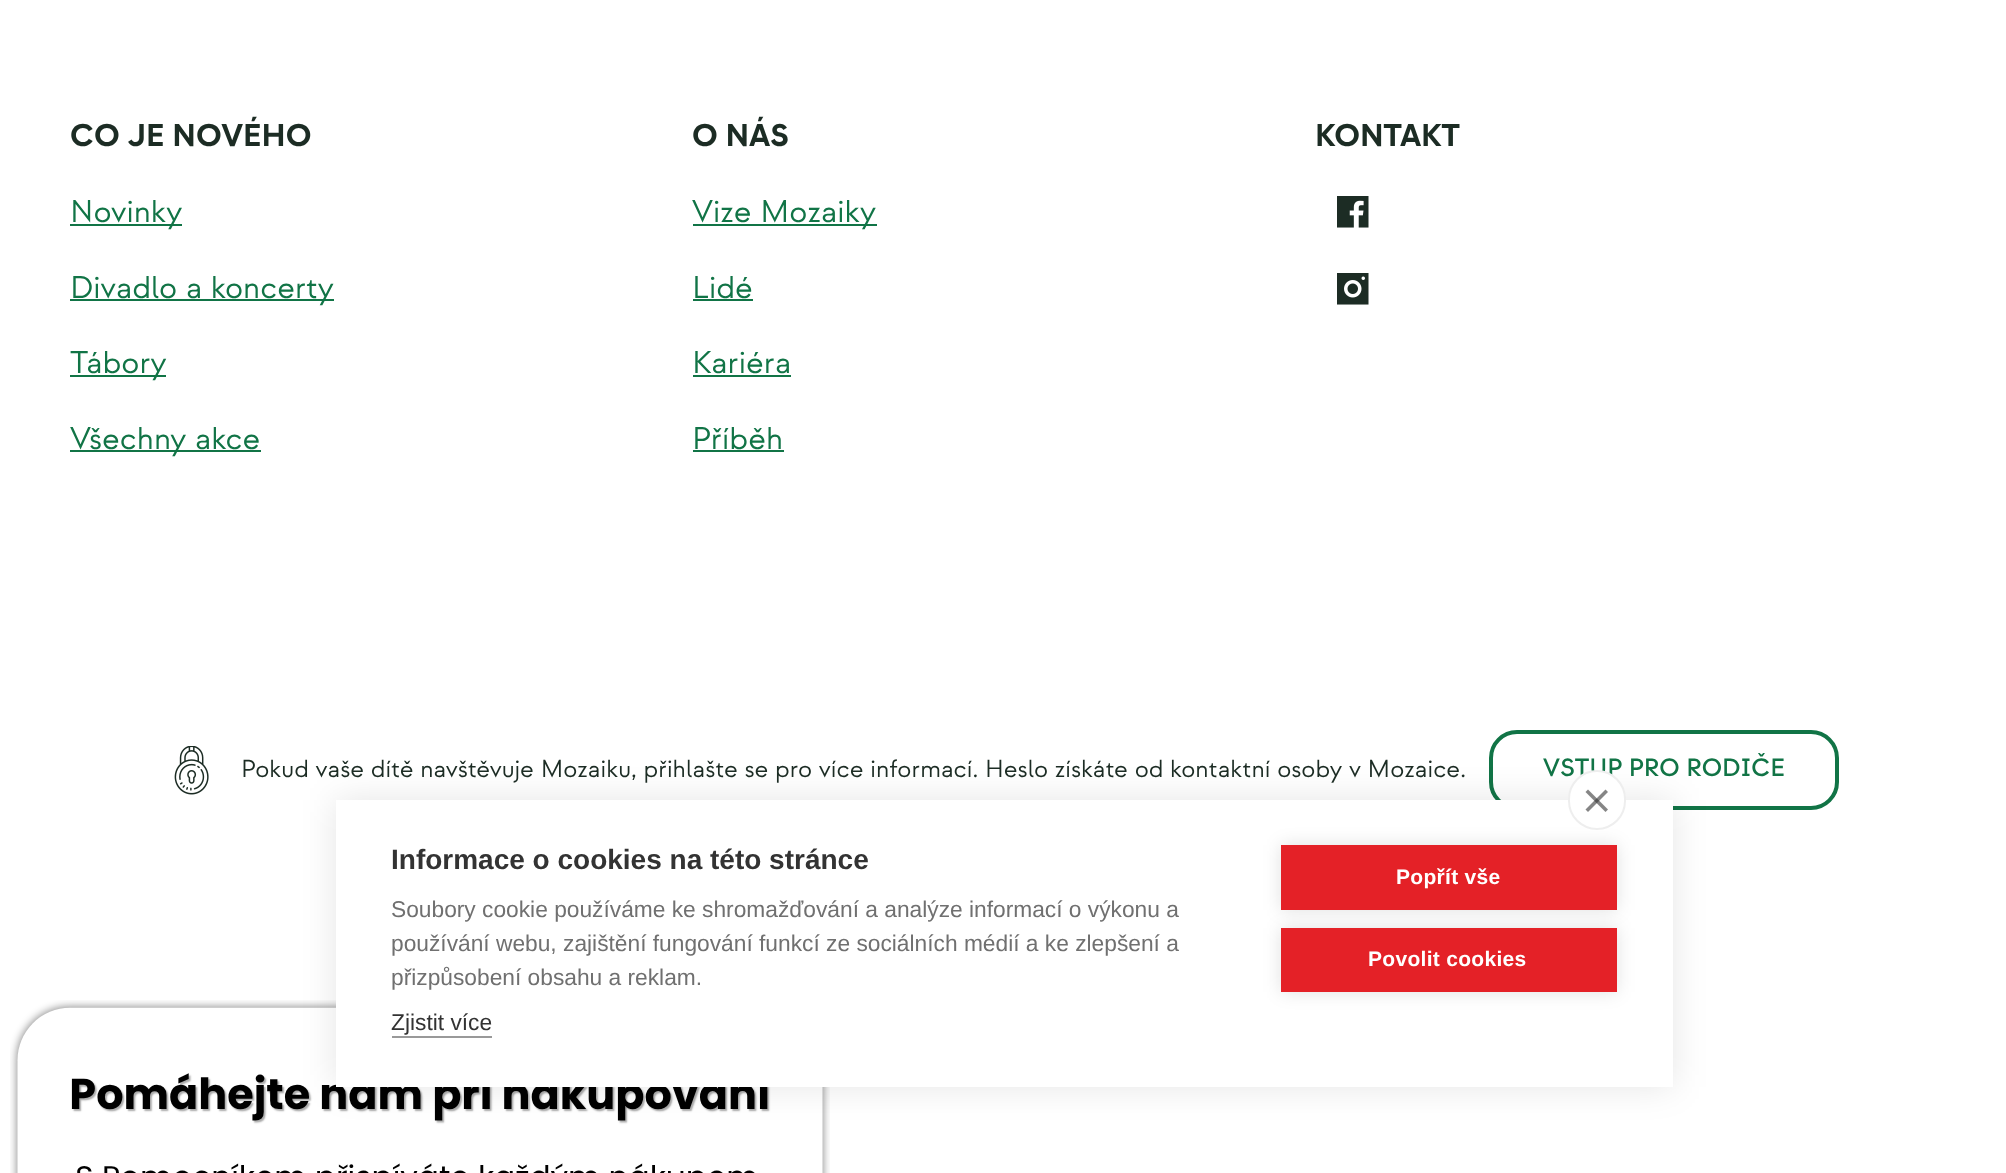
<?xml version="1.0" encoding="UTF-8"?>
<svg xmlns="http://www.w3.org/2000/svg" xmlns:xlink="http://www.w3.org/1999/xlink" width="2006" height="1173">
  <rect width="100%" height="100%" fill="#ffffff" />
  <rect x="70" y="224" width="112" height="2" fill="#117446" />
  <rect x="70" y="299" width="264" height="2" fill="#117446" />
  <rect x="70" y="375" width="96" height="2" fill="#117446" />
  <rect x="70" y="450" width="191" height="2" fill="#117446" />
  <rect x="693" y="224" width="184" height="2" fill="#117446" />
  <rect x="693" y="299" width="60" height="2" fill="#117446" />
  <rect x="693" y="375" width="98" height="2" fill="#117446" />
  <rect x="693" y="450" width="91" height="2" fill="#117446" />
  <image x="1337" y="196" width="32" height="32" xlink:href="image1.png" />
  <image x="1337" y="273" width="32" height="32" xlink:href="image2.png" />
  <image x="174" y="746" width="35" height="49" xlink:href="image3.png" />
  <rect x="1491" y="732" width="346" height="76" rx="26" fill="none" stroke="#117446" stroke-width="4" />
  <image x="10" y="1000" width="820" height="173" xlink:href="image4.png" />
  <rect x="336" y="800" width="1337" height="287" fill="#000000" fill-opacity="0.1" filter="blur(17.5px)" />
  <rect x="336" y="800" width="1337" height="287" fill="#ffffff" />
  <rect x="392" y="1036" width="100" height="2" fill="#999999" />
  <rect x="1281" y="845" width="336" height="65" fill="#000000" fill-opacity="0.12" filter="blur(9px)" />
  <rect x="1281" y="845" width="336" height="65" fill="#e42127" />
  <rect x="1281" y="928" width="336" height="64" fill="#000000" fill-opacity="0.12" filter="blur(9px)" />
  <rect x="1281" y="928" width="336" height="64" fill="#e42127" />
  <text x="70" y="146" style="font-family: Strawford; font-size: 31.5px; font-weight: bold; fill: #1c2c24">CO JE NOVÉHO</text>
  <text x="70" y="222" style="font-family: Strawford; font-size: 31.5px; fill: #117446">Novinky</text>
  <text x="70" y="298" style="font-family: Strawford; font-size: 31.5px; fill: #117446">Divadlo a koncerty</text>
  <text x="70" y="373" style="font-family: Strawford; font-size: 31.5px; fill: #117446">Tábory</text>
  <text x="70" y="449" style="font-family: Strawford; font-size: 31.5px; fill: #117446">Všechny akce</text>
  <text x="692" y="146" style="font-family: Strawford; font-size: 31.5px; font-weight: bold; fill: #1c2c24">O NÁS</text>
  <text x="692" y="222" style="font-family: Strawford; font-size: 31.5px; fill: #117446">Vize Mozaiky</text>
  <text x="692" y="298" style="font-family: Strawford; font-size: 31.5px; fill: #117446">Lidé</text>
  <text x="692" y="373" style="font-family: Strawford; font-size: 31.5px; fill: #117446">Kariéra</text>
  <text x="692" y="449" style="font-family: Strawford; font-size: 31.5px; fill: #117446">Příběh</text>
  <text x="1315" y="146" style="font-family: Strawford; font-size: 31.5px; font-weight: bold; fill: #1c2c24">KONTAKT</text>
  <text x="241" y="777" style="font-family: Strawford; font-size: 24.5px; fill: #1c2c24">Pokud vaše dítě navštěvuje Mozaiku, přihlašte se pro více informací. Heslo získáte od kontaktní osoby v Mozaice.</text>
  <text x="1543" y="776" style="font-family: Strawford; font-size: 24.9px; font-weight: 500; fill: #117446">VSTUP PRO RODIČE</text>
  <rect x="1569" y="771" width="56" height="58" rx="28" fill="#ffffff" stroke="#eeeeee" stroke-width="2" />
  <path d="M 1585.5 809.5 l 20 -20 l 2.5 2.5 l -20 20 z" fill="#858585" />
  <path d="M 1588 789.5 l 20 20 l -2.5 2.5 l -20 -20 z" fill="#333333" fill-opacity="0.6" />
  <text x="391" y="869" style="font-family: Liberation Sans; font-size: 28px; font-weight: bold; fill: #333333">Informace o cookies na této stránce</text>
  <text x="391" y="917" style="font-family: Liberation Sans; font-size: 22.75px; fill: #707070">Soubory cookie používáme ke shromažďování a analýze informací o výkonu a</text>
  <text x="391" y="951" style="font-family: Liberation Sans; font-size: 22.75px; fill: #707070">používání webu, zajištění fungování funkcí ze sociálních médií a ke zlepšení a</text>
  <text x="391" y="985" style="font-family: Liberation Sans; font-size: 22.75px; fill: #707070">přizpůsobení obsahu a reklam.</text>
  <text x="391" y="1030" style="font-family: Liberation Sans; font-size: 22.75px; fill: #333333">Zjistit více</text>
  <text x="1396" y="884" style="font-family: Liberation Sans; font-size: 21px; font-weight: bold; letter-spacing: 0.3px; fill: #ffffff">Popřít vše</text>
  <text x="1368" y="966" style="font-family: Liberation Sans; font-size: 21px; font-weight: bold; letter-spacing: 0.3px; fill: #ffffff">Povolit cookies</text>
</svg>
